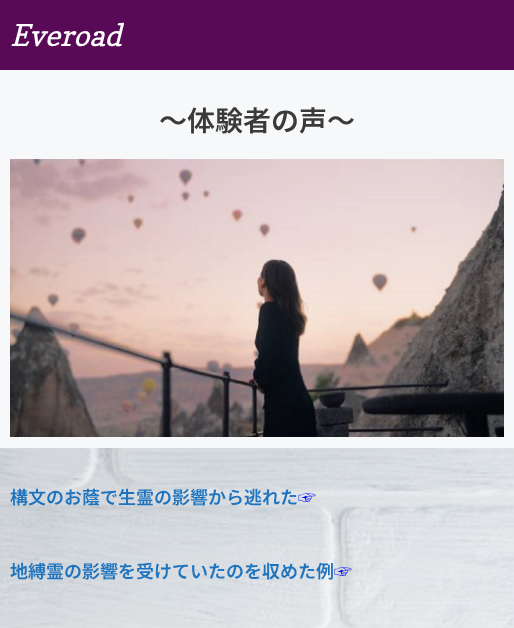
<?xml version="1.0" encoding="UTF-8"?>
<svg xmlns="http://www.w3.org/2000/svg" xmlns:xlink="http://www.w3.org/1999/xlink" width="514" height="628">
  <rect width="100%" height="100%" fill="#f7f8f9" />
  <rect width="514" height="70" fill="#580a56" />
  <image x="10" y="159" width="494" height="278" xlink:href="image1.png" />
  <image x="0" y="448" width="514" height="180" xlink:href="image2.png" />
  <text x="10" y="46" style="font-family: Copse; font-size: 30px; font-style: italic; fill: #ffffff">Everoad</text>
  <text x="159" y="131" style="font-family: Noto Sans JP; font-size: 28px; font-weight: 600; fill: #3a3a3a">～体験者の声～</text>
  <text x="10" y="504" style="font-family: Noto Sans JP; font-size: 18px; font-weight: 600; fill: #1e73be">構文のお蔭で生霊の影響から逃れた</text>
  <text x="298" y="504" style="font-family: Noto Sans JP; font-size: 18px; font-weight: 600; fill: #000bfa">☞</text>
  <text x="10" y="578" style="font-family: Noto Sans JP; font-size: 18px; font-weight: 600; fill: #1e73be">地縛霊の影響を受けていたのを収めた例</text>
  <text x="334" y="578" style="font-family: Noto Sans JP; font-size: 18px; font-weight: 600; fill: #030ef3">☞</text>
</svg>
